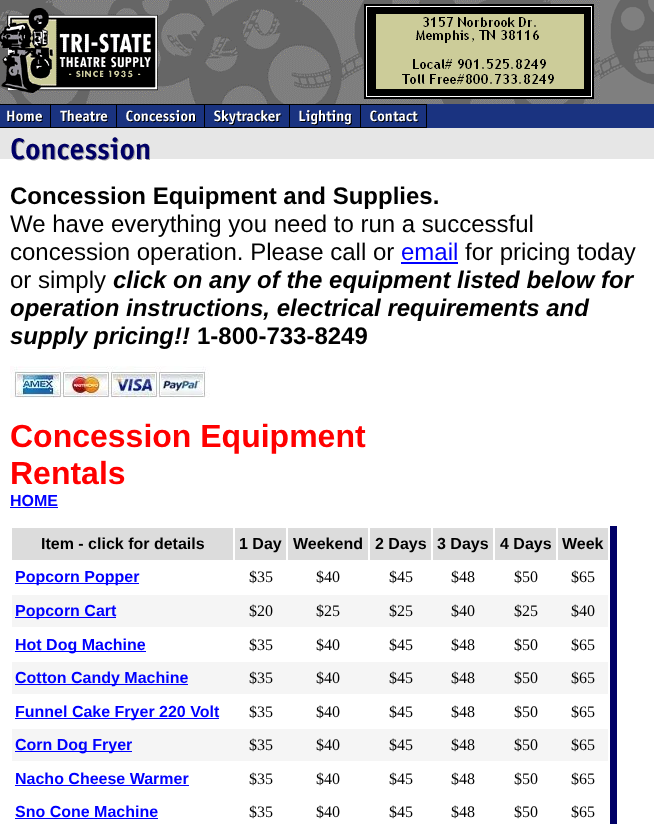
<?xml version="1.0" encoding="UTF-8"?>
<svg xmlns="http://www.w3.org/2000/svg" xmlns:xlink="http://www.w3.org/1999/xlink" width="654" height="824">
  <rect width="100%" height="100%" fill="#ffffff" />
  <image x="600" y="0" width="54" height="104" xlink:href="image1.png" />
  <image x="0" y="0" width="600" height="104" xlink:href="image2.png" />
  <rect x="427" y="104" width="227" height="24" fill="#1a3380" />
  <image x="0" y="104" width="51" height="24" xlink:href="image3.png" />
  <image x="51" y="104" width="66" height="24" xlink:href="image4.png" />
  <image x="117" y="104" width="88" height="24" xlink:href="image5.png" />
  <image x="205" y="104" width="85" height="24" xlink:href="image6.png" />
  <image x="290" y="104" width="71" height="24" xlink:href="image7.png" />
  <image x="361" y="104" width="66" height="24" xlink:href="image8.png" />
  <rect y="128" width="654" height="31" fill="#e6e6e6" />
  <image x="11" y="137" width="139" height="24" xlink:href="image9.png" />
  <rect x="401" y="262" width="57" height="2" fill="#0000ff" />
  <image x="10" y="366" width="200" height="33" xlink:href="image10.png" />
  <rect x="10" y="507" width="48" height="1" fill="#0000ff" />
  <rect x="610" y="526" width="7" height="298" fill="#000066" />
  <rect x="12" y="528" width="221" height="32" fill="#dcdcdc" />
  <rect x="235" y="528" width="51" height="32" fill="#dcdcdc" />
  <rect x="288" y="528" width="80" height="32" fill="#dcdcdc" />
  <rect x="370" y="528" width="61" height="32" fill="#dcdcdc" />
  <rect x="433" y="528" width="60" height="32" fill="#dcdcdc" />
  <rect x="495" y="528" width="61" height="32" fill="#dcdcdc" />
  <rect x="558" y="528" width="50" height="32" fill="#dcdcdc" />
  <rect x="15" y="583" width="124" height="1" fill="#0000ff" />
  <rect x="12" y="595" width="596" height="32" fill="#f5f5f5" />
  <rect x="15" y="617" width="101" height="1" fill="#0000ff" />
  <rect x="15" y="651" width="131" height="1" fill="#0000ff" />
  <rect x="12" y="662" width="596" height="32" fill="#f5f5f5" />
  <rect x="15" y="684" width="173" height="1" fill="#0000ff" />
  <rect x="15" y="718" width="204" height="1" fill="#0000ff" />
  <rect x="12" y="729" width="596" height="32" fill="#f5f5f5" />
  <rect x="15" y="751" width="117" height="1" fill="#0000ff" />
  <rect x="15" y="785" width="174" height="1" fill="#0000ff" />
  <rect x="15" y="818" width="143" height="1" fill="#0000ff" />
  <text x="10" y="204" style="font-family: Liberation Sans; font-size: 24px; font-weight: bold; fill: #000000">Concession Equipment and Supplies.</text>
  <text x="10" y="232" style="font-family: Liberation Sans; font-size: 24px; fill: #000000">We have everything you need to run a successful</text>
  <text x="10" y="260" style="font-family: Liberation Sans; font-size: 24px; fill: #000000">concession operation. Please call or</text>
  <text x="401" y="260" style="font-family: Liberation Sans; font-size: 24px; fill: #0000ff">email</text>
  <text x="465" y="260" style="font-family: Liberation Sans; font-size: 24px; fill: #000000">for pricing today</text>
  <text x="10" y="288" style="font-family: Liberation Sans; font-size: 24px; fill: #000000">or simply</text>
  <text x="113" y="288" style="font-family: Liberation Sans; font-size: 24px; font-weight: bold; font-style: italic; fill: #000000">click on any of the equipment listed below for</text>
  <text x="10" y="316" style="font-family: Liberation Sans; font-size: 24px; font-weight: bold; font-style: italic; fill: #000000">operation instructions, electrical requirements and</text>
  <text x="10" y="344" style="font-family: Liberation Sans; font-size: 24px; font-weight: bold; font-style: italic; fill: #000000">supply pricing!!</text>
  <text x="197" y="344" style="font-family: Liberation Sans; font-size: 24px; font-weight: bold; fill: #000000">1-800-733-8249</text>
  <text x="10" y="447" style="font-family: Liberation Sans; font-size: 32px; font-weight: bold; fill: #ff0000">Concession Equipment</text>
  <text x="10" y="484" style="font-family: Liberation Sans; font-size: 32px; font-weight: bold; fill: #ff0000">Rentals</text>
  <text x="10" y="506" style="font-family: Liberation Sans; font-size: 16px; font-weight: bold; fill: #0000ff">HOME</text>
  <text x="41" y="549" style="font-family: Liberation Sans; font-size: 16px; font-weight: bold; fill: #000000">Item - click for details</text>
  <text x="239" y="549" style="font-family: Liberation Sans; font-size: 16px; font-weight: bold; fill: #000000">1 Day</text>
  <text x="293" y="549" style="font-family: Liberation Sans; font-size: 16px; font-weight: bold; fill: #000000">Weekend</text>
  <text x="375" y="549" style="font-family: Liberation Sans; font-size: 16px; font-weight: bold; fill: #000000">2 Days</text>
  <text x="437" y="549" style="font-family: Liberation Sans; font-size: 16px; font-weight: bold; fill: #000000">3 Days</text>
  <text x="500" y="549" style="font-family: Liberation Sans; font-size: 16px; font-weight: bold; fill: #000000">4 Days</text>
  <text x="562" y="549" style="font-family: Liberation Sans; font-size: 16px; font-weight: bold; fill: #000000">Week</text>
  <text x="15" y="582" style="font-family: Liberation Sans; font-size: 16px; font-weight: bold; fill: #0000ff">Popcorn Popper</text>
  <text x="249" y="582" style="font-family: Liberation Serif; font-size: 16px; fill: #000000">$35</text>
  <text x="316" y="582" style="font-family: Liberation Serif; font-size: 16px; fill: #000000">$40</text>
  <text x="389" y="582" style="font-family: Liberation Serif; font-size: 16px; fill: #000000">$45</text>
  <text x="451" y="582" style="font-family: Liberation Serif; font-size: 16px; fill: #000000">$48</text>
  <text x="514" y="582" style="font-family: Liberation Serif; font-size: 16px; fill: #000000">$50</text>
  <text x="571" y="582" style="font-family: Liberation Serif; font-size: 16px; fill: #000000">$65</text>
  <text x="15" y="616" style="font-family: Liberation Sans; font-size: 16px; font-weight: bold; fill: #0000ff">Popcorn Cart</text>
  <text x="249" y="616" style="font-family: Liberation Serif; font-size: 16px; fill: #000000">$20</text>
  <text x="316" y="616" style="font-family: Liberation Serif; font-size: 16px; fill: #000000">$25</text>
  <text x="389" y="616" style="font-family: Liberation Serif; font-size: 16px; fill: #000000">$25</text>
  <text x="451" y="616" style="font-family: Liberation Serif; font-size: 16px; fill: #000000">$40</text>
  <text x="514" y="616" style="font-family: Liberation Serif; font-size: 16px; fill: #000000">$25</text>
  <text x="571" y="616" style="font-family: Liberation Serif; font-size: 16px; fill: #000000">$40</text>
  <text x="15" y="650" style="font-family: Liberation Sans; font-size: 16px; font-weight: bold; fill: #0000ff">Hot Dog Machine</text>
  <text x="249" y="650" style="font-family: Liberation Serif; font-size: 16px; fill: #000000">$35</text>
  <text x="316" y="650" style="font-family: Liberation Serif; font-size: 16px; fill: #000000">$40</text>
  <text x="389" y="650" style="font-family: Liberation Serif; font-size: 16px; fill: #000000">$45</text>
  <text x="451" y="650" style="font-family: Liberation Serif; font-size: 16px; fill: #000000">$48</text>
  <text x="514" y="650" style="font-family: Liberation Serif; font-size: 16px; fill: #000000">$50</text>
  <text x="571" y="650" style="font-family: Liberation Serif; font-size: 16px; fill: #000000">$65</text>
  <text x="15" y="683" style="font-family: Liberation Sans; font-size: 16px; font-weight: bold; fill: #0000ff">Cotton Candy Machine</text>
  <text x="249" y="683" style="font-family: Liberation Serif; font-size: 16px; fill: #000000">$35</text>
  <text x="316" y="683" style="font-family: Liberation Serif; font-size: 16px; fill: #000000">$40</text>
  <text x="389" y="683" style="font-family: Liberation Serif; font-size: 16px; fill: #000000">$45</text>
  <text x="451" y="683" style="font-family: Liberation Serif; font-size: 16px; fill: #000000">$48</text>
  <text x="514" y="683" style="font-family: Liberation Serif; font-size: 16px; fill: #000000">$50</text>
  <text x="571" y="683" style="font-family: Liberation Serif; font-size: 16px; fill: #000000">$65</text>
  <text x="15" y="717" style="font-family: Liberation Sans; font-size: 16px; font-weight: bold; fill: #0000ff">Funnel Cake Fryer 220 Volt</text>
  <text x="249" y="717" style="font-family: Liberation Serif; font-size: 16px; fill: #000000">$35</text>
  <text x="316" y="717" style="font-family: Liberation Serif; font-size: 16px; fill: #000000">$40</text>
  <text x="389" y="717" style="font-family: Liberation Serif; font-size: 16px; fill: #000000">$45</text>
  <text x="451" y="717" style="font-family: Liberation Serif; font-size: 16px; fill: #000000">$48</text>
  <text x="514" y="717" style="font-family: Liberation Serif; font-size: 16px; fill: #000000">$50</text>
  <text x="571" y="717" style="font-family: Liberation Serif; font-size: 16px; fill: #000000">$65</text>
  <text x="15" y="750" style="font-family: Liberation Sans; font-size: 16px; font-weight: bold; fill: #0000ff">Corn Dog Fryer</text>
  <text x="249" y="750" style="font-family: Liberation Serif; font-size: 16px; fill: #000000">$35</text>
  <text x="316" y="750" style="font-family: Liberation Serif; font-size: 16px; fill: #000000">$40</text>
  <text x="389" y="750" style="font-family: Liberation Serif; font-size: 16px; fill: #000000">$45</text>
  <text x="451" y="750" style="font-family: Liberation Serif; font-size: 16px; fill: #000000">$48</text>
  <text x="514" y="750" style="font-family: Liberation Serif; font-size: 16px; fill: #000000">$50</text>
  <text x="571" y="750" style="font-family: Liberation Serif; font-size: 16px; fill: #000000">$65</text>
  <text x="15" y="784" style="font-family: Liberation Sans; font-size: 16px; font-weight: bold; fill: #0000ff">Nacho Cheese Warmer</text>
  <text x="249" y="784" style="font-family: Liberation Serif; font-size: 16px; fill: #000000">$35</text>
  <text x="316" y="784" style="font-family: Liberation Serif; font-size: 16px; fill: #000000">$40</text>
  <text x="389" y="784" style="font-family: Liberation Serif; font-size: 16px; fill: #000000">$45</text>
  <text x="451" y="784" style="font-family: Liberation Serif; font-size: 16px; fill: #000000">$48</text>
  <text x="514" y="784" style="font-family: Liberation Serif; font-size: 16px; fill: #000000">$50</text>
  <text x="571" y="784" style="font-family: Liberation Serif; font-size: 16px; fill: #000000">$65</text>
  <text x="15" y="817" style="font-family: Liberation Sans; font-size: 16px; font-weight: bold; fill: #0000ff">Sno Cone Machine</text>
  <text x="249" y="817" style="font-family: Liberation Serif; font-size: 16px; fill: #000000">$35</text>
  <text x="316" y="817" style="font-family: Liberation Serif; font-size: 16px; fill: #000000">$40</text>
  <text x="389" y="817" style="font-family: Liberation Serif; font-size: 16px; fill: #000000">$45</text>
  <text x="451" y="817" style="font-family: Liberation Serif; font-size: 16px; fill: #000000">$48</text>
  <text x="514" y="817" style="font-family: Liberation Serif; font-size: 16px; fill: #000000">$50</text>
  <text x="571" y="817" style="font-family: Liberation Serif; font-size: 16px; fill: #000000">$65</text>
</svg>
